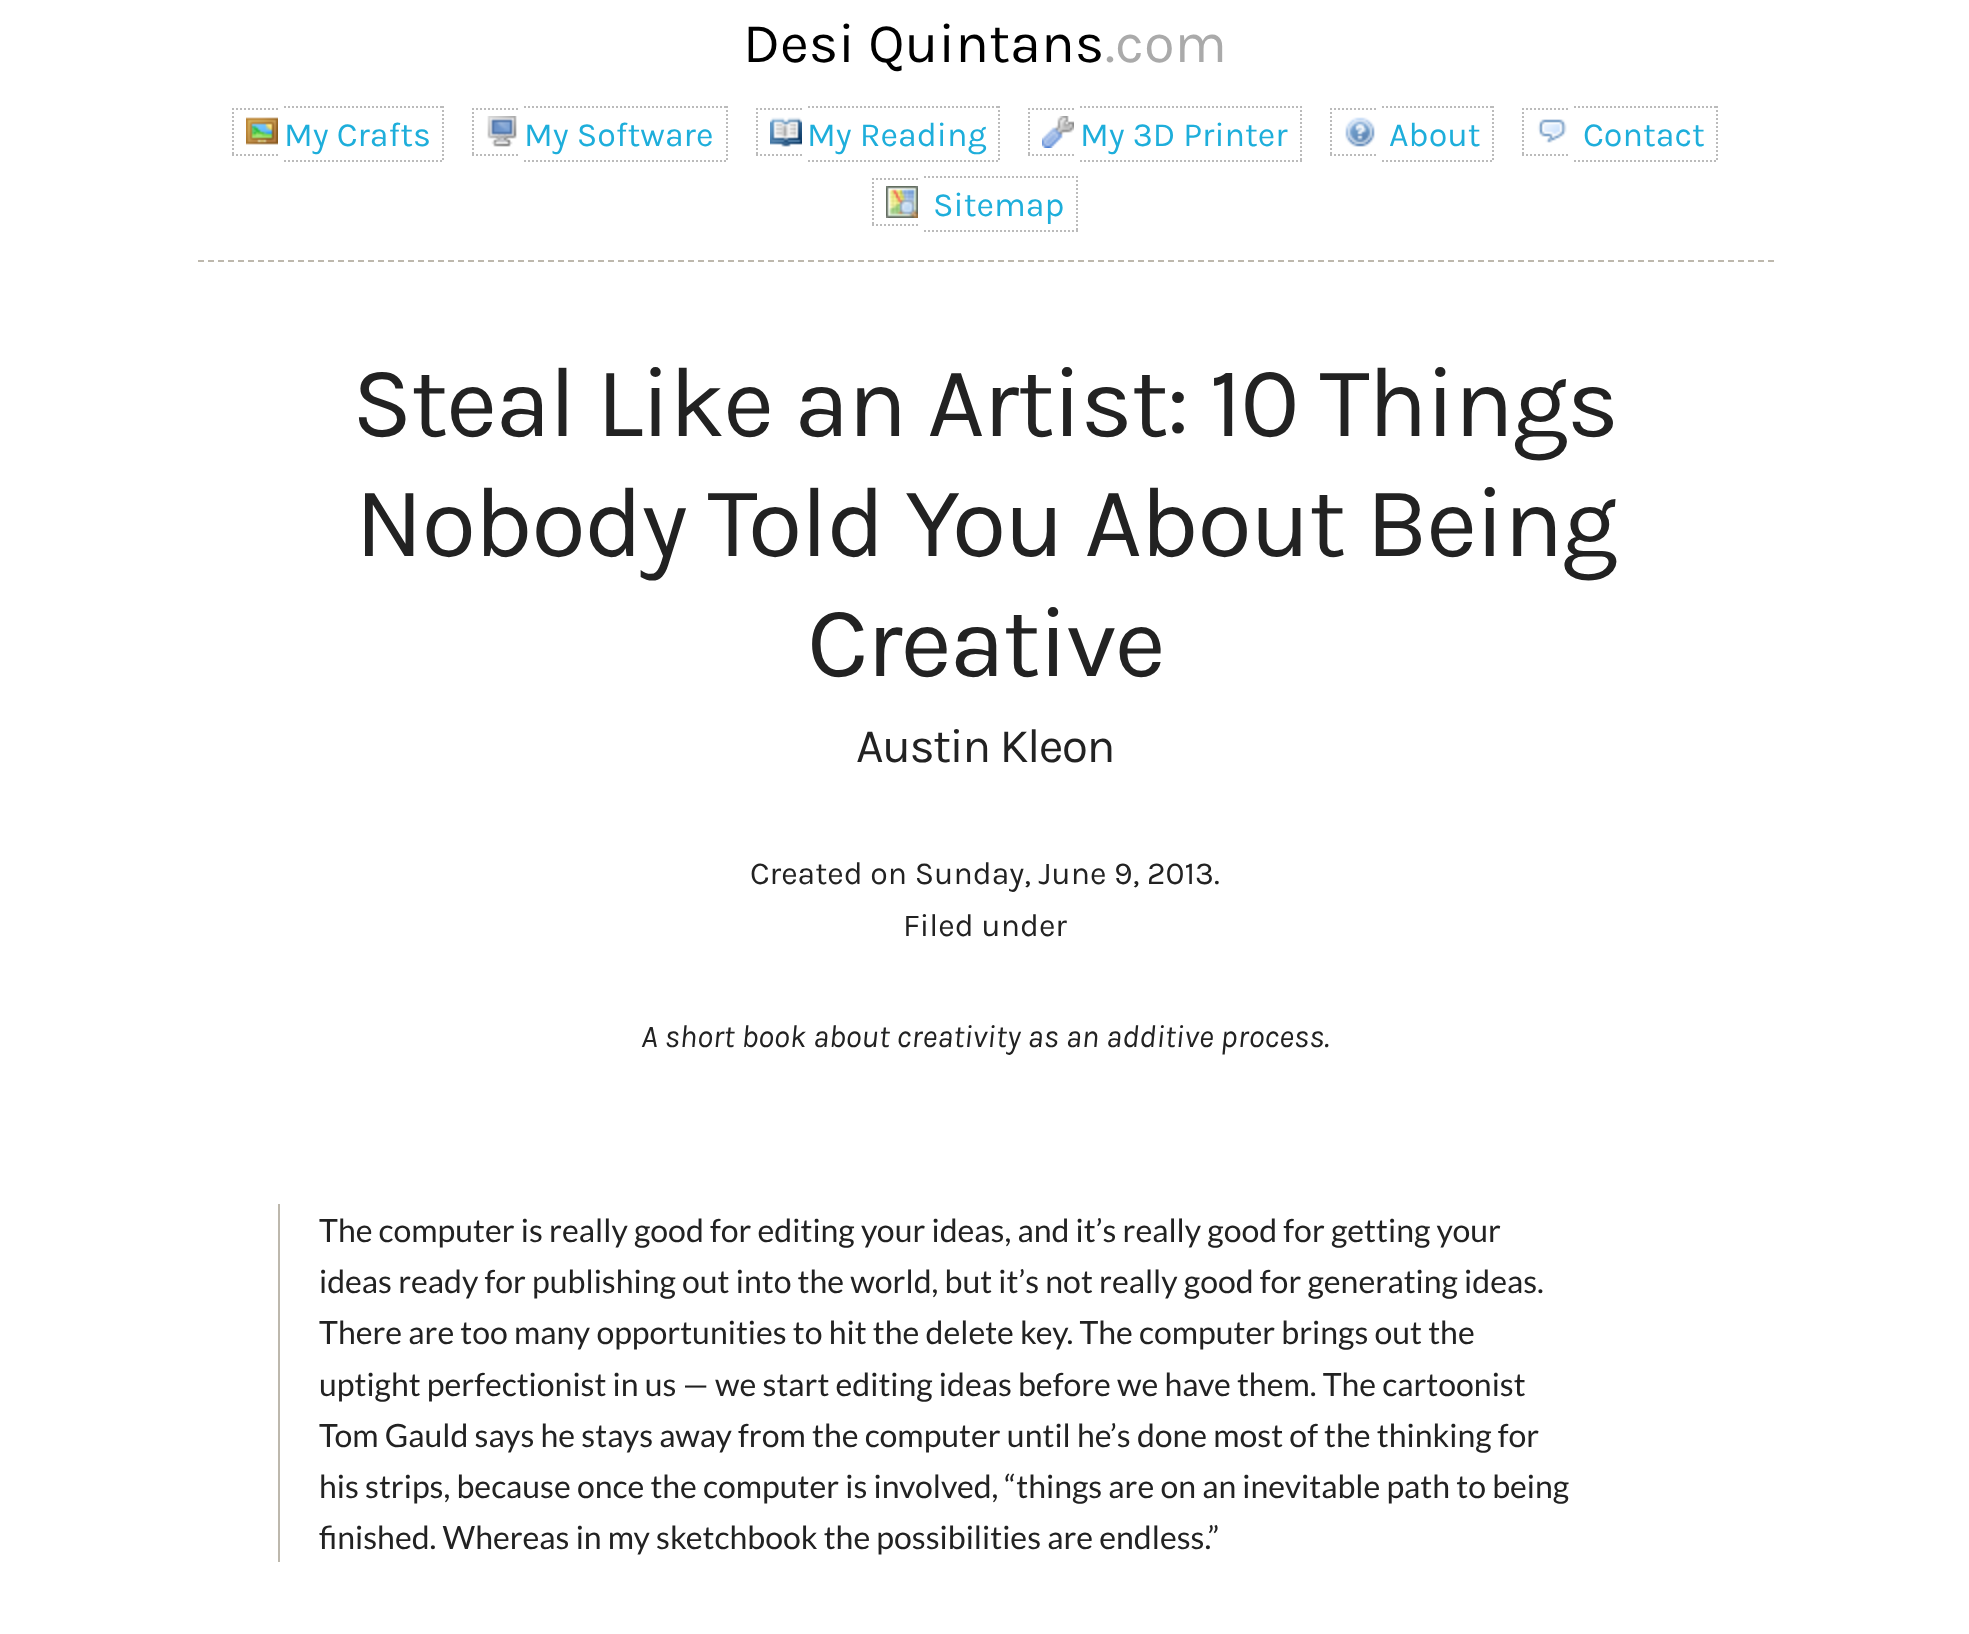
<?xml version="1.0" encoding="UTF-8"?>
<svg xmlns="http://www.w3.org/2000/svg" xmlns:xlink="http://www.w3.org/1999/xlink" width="1969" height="1634">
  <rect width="100%" height="100%" fill="#ffffff" />
  <path d="M 198 261 h 1576" fill="none" stroke="#bdb8ad" stroke-width="2" stroke-dasharray="6 4" />
  <path d="M 232 109 h 46 m -46 46 h 46 m -45 -47 v 48" fill="none" stroke="#bbbbbb" stroke-width="2" stroke-dasharray="2 2" />
  <image x="246" y="117" width="32" height="28" xlink:href="image1.png" />
  <path d="M 284 107 h 160" fill="none" stroke="#bbbbbb" stroke-width="2" stroke-dasharray="2 2" />
  <path d="M 443 106 v 56" fill="none" stroke="#bbbbbb" stroke-width="2" stroke-dasharray="2 2" />
  <path d="M 284 161 h 160" fill="none" stroke="#bbbbbb" stroke-width="2" stroke-dasharray="2 2" />
  <path d="M 472 109 h 46 m -46 46 h 46 m -45 -47 v 48" fill="none" stroke="#bbbbbb" stroke-width="2" stroke-dasharray="2 2" />
  <image x="487" y="116" width="30" height="31" xlink:href="image2.png" />
  <path d="M 524 107 h 204" fill="none" stroke="#bbbbbb" stroke-width="2" stroke-dasharray="2 2" />
  <path d="M 727 106 v 56" fill="none" stroke="#bbbbbb" stroke-width="2" stroke-dasharray="2 2" />
  <path d="M 524 161 h 204" fill="none" stroke="#bbbbbb" stroke-width="2" stroke-dasharray="2 2" />
  <path d="M 756 109 h 46 m -46 46 h 46 m -45 -47 v 48" fill="none" stroke="#bbbbbb" stroke-width="2" stroke-dasharray="2 2" />
  <image x="770" y="117" width="32" height="30" xlink:href="image3.png" />
  <path d="M 808 107 h 192" fill="none" stroke="#bbbbbb" stroke-width="2" stroke-dasharray="2 2" />
  <path d="M 999 106 v 56" fill="none" stroke="#bbbbbb" stroke-width="2" stroke-dasharray="2 2" />
  <path d="M 808 161 h 192" fill="none" stroke="#bbbbbb" stroke-width="2" stroke-dasharray="2 2" />
  <path d="M 1028 109 h 46 m -46 46 h 46 m -45 -47 v 48" fill="none" stroke="#bbbbbb" stroke-width="2" stroke-dasharray="2 2" />
  <image x="1042" y="116" width="32" height="32" xlink:href="image4.png" />
  <path d="M 1080 107 h 222" fill="none" stroke="#bbbbbb" stroke-width="2" stroke-dasharray="2 2" />
  <path d="M 1301 106 v 56" fill="none" stroke="#bbbbbb" stroke-width="2" stroke-dasharray="2 2" />
  <path d="M 1080 161 h 222" fill="none" stroke="#bbbbbb" stroke-width="2" stroke-dasharray="2 2" />
  <path d="M 1330 109 h 46 m -46 46 h 46 m -45 -47 v 48" fill="none" stroke="#bbbbbb" stroke-width="2" stroke-dasharray="2 2" />
  <image x="1345" y="117" width="30" height="30" xlink:href="image5.png" />
  <path d="M 1382 107 h 112" fill="none" stroke="#bbbbbb" stroke-width="2" stroke-dasharray="2 2" />
  <path d="M 1493 106 v 56" fill="none" stroke="#bbbbbb" stroke-width="2" stroke-dasharray="2 2" />
  <path d="M 1382 161 h 112" fill="none" stroke="#bbbbbb" stroke-width="2" stroke-dasharray="2 2" />
  <path d="M 1522 109 h 46 m -46 46 h 46 m -45 -47 v 48" fill="none" stroke="#bbbbbb" stroke-width="2" stroke-dasharray="2 2" />
  <image x="1537" y="119" width="30" height="24" xlink:href="image6.png" />
  <path d="M 1574 107 h 144" fill="none" stroke="#bbbbbb" stroke-width="2" stroke-dasharray="2 2" />
  <path d="M 1717 106 v 56" fill="none" stroke="#bbbbbb" stroke-width="2" stroke-dasharray="2 2" />
  <path d="M 1574 161 h 144" fill="none" stroke="#bbbbbb" stroke-width="2" stroke-dasharray="2 2" />
  <path d="M 872 179 h 46 m -46 46 h 46 m -45 -47 v 48" fill="none" stroke="#bbbbbb" stroke-width="2" stroke-dasharray="2 2" />
  <image x="886" y="186" width="32" height="32" xlink:href="image7.png" />
  <path d="M 924 177 h 154" fill="none" stroke="#bbbbbb" stroke-width="2" stroke-dasharray="2 2" />
  <path d="M 1077 176 v 56" fill="none" stroke="#bbbbbb" stroke-width="2" stroke-dasharray="2 2" />
  <path d="M 924 231 h 154" fill="none" stroke="#bbbbbb" stroke-width="2" stroke-dasharray="2 2" />
  <rect x="278" y="1204" width="2" height="358" fill="#bdb8ad" />
  <text x="743" y="62" style="font-family: Karla; font-size: 56px; fill: #000000">Desi Quintans</text>
  <text x="1105" y="62" style="font-family: Karla; font-size: 56px; fill: #aaaaaa">.com</text>
  <text x="284" y="146" style="font-family: Karla; font-size: 34px; fill: #1eaedb">My Crafts</text>
  <text x="524" y="146" style="font-family: Karla; font-size: 34px; fill: #1eaedb">My Software</text>
  <text x="807" y="146" style="font-family: Karla; font-size: 34px; fill: #1eaedb">My Reading</text>
  <text x="1080" y="146" style="font-family: Karla; font-size: 34px; fill: #1eaedb">My 3D Printer</text>
  <text x="1389" y="146" style="font-family: Karla; font-size: 34px; fill: #1eaedb">About</text>
  <text x="1583" y="146" style="font-family: Karla; font-size: 34px; fill: #1eaedb">Contact</text>
  <text x="933" y="216" style="font-family: Karla; font-size: 34px; fill: #1eaedb">Sitemap</text>
  <text x="352" y="436" style="font-family: Karla; font-size: 100px; letter-spacing: -2px; fill: #222222">Steal Like an Artist: 10 Things</text>
  <text x="355" y="556" style="font-family: Karla; font-size: 100px; letter-spacing: -2px; fill: #222222">Nobody Told You About Being</text>
  <text x="807" y="676" style="font-family: Karla; font-size: 100px; letter-spacing: -2px; fill: #222222">Creative</text>
  <text x="856" y="762" style="font-family: Karla; font-size: 48px; letter-spacing: -1.6px; fill: #222222">Austin Kleon</text>
  <text x="750" y="884" style="font-family: Karla; font-size: 32px; fill: #222222">Created on Sunday, June 9, 2013.</text>
  <text x="903" y="936" style="font-family: Karla; font-size: 32px; fill: #222222">Filed under</text>
  <text x="641" y="1047" style="font-family: Karla; font-size: 32px; font-style: italic; fill: #222222">A short book about creativity as an additive process.</text>
  <text x="319" y="1242" style="font-family: Lato; font-size: 32px; fill: #222222">The computer is really good for editing your ideas, and it’s really good for getting your</text>
  <text x="319" y="1293" style="font-family: Lato; font-size: 32px; fill: #222222">ideas ready for publishing out into the world, but it’s not really good for generating ideas.</text>
  <text x="319" y="1344" style="font-family: Lato; font-size: 32px; fill: #222222">There are too many opportunities to hit the delete key. The computer brings out the</text>
  <text x="319" y="1396" style="font-family: Lato; font-size: 32px; fill: #222222">uptight perfectionist in us — we start editing ideas before we have them. The cartoonist</text>
  <text x="319" y="1447" style="font-family: Lato; font-size: 32px; fill: #222222">Tom Gauld says he stays away from the computer until he’s done most of the thinking for</text>
  <text x="319" y="1498" style="font-family: Lato; font-size: 32px; fill: #222222">his strips, because once the computer is involved, “things are on an inevitable path to being</text>
  <text x="319" y="1549" style="font-family: Lato; font-size: 32px; fill: #222222">finished. Whereas in my sketchbook the possibilities are endless.”</text>
</svg>
